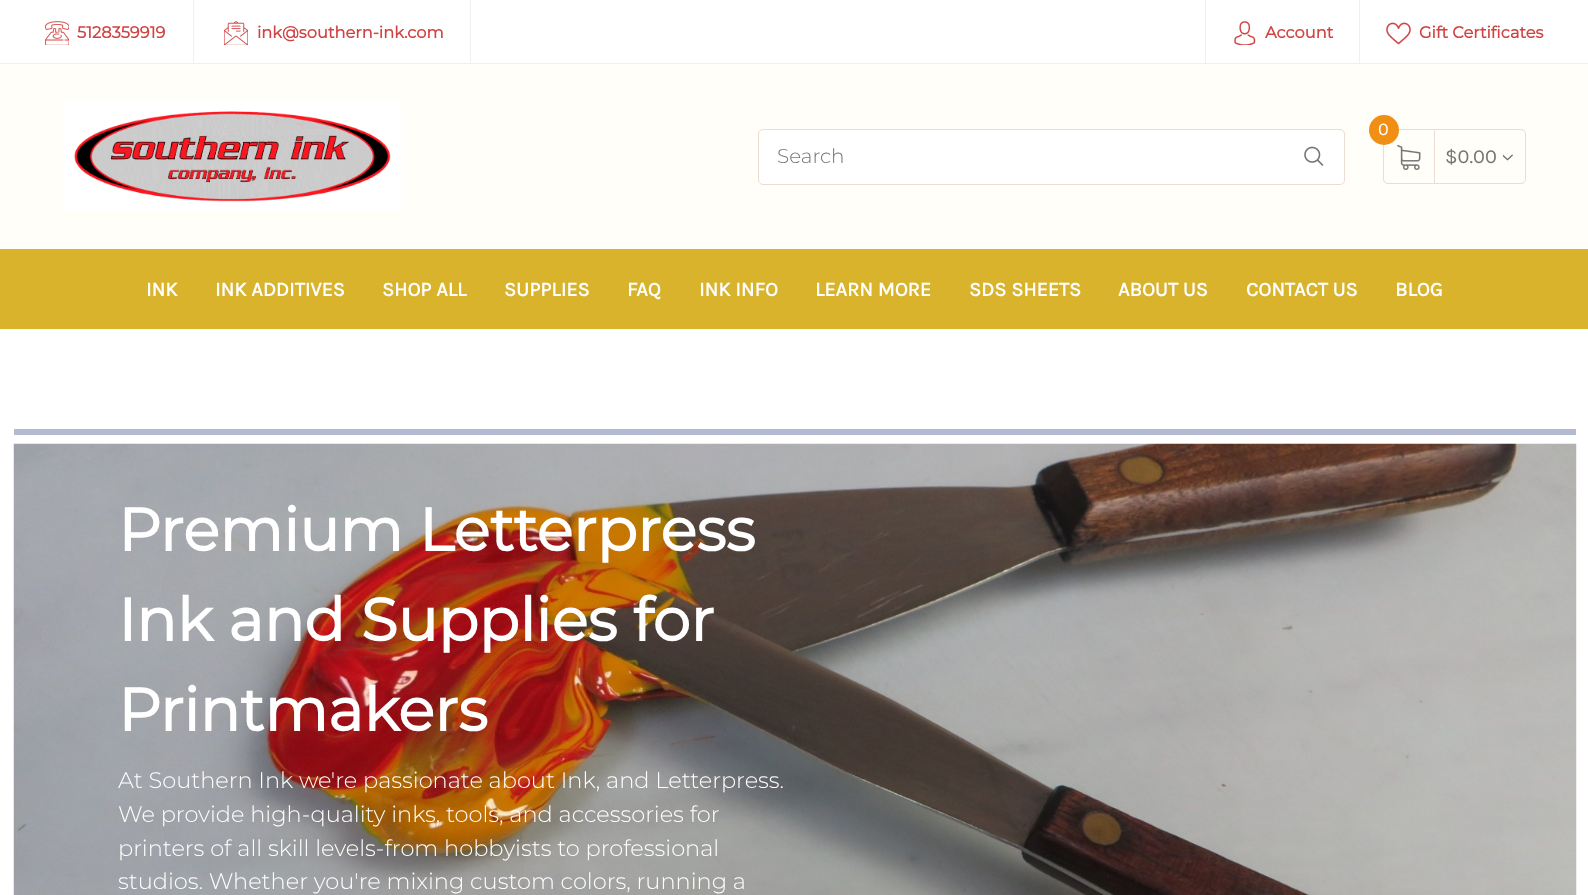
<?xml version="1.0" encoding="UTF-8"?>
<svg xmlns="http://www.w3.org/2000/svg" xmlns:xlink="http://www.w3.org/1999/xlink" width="1588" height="895">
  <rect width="100%" height="100%" fill="#ffffff" />
  <rect y="63" width="1588" height="1" fill="#f0f0f0" />
  <rect x="193" width="1" height="63" fill="#f0f0f0" />
  <image x="45" y="21" width="24" height="24" xlink:href="image1.png" />
  <rect x="470" width="1" height="63" fill="#f0f0f0" />
  <image x="224" y="21" width="24" height="24" xlink:href="image2.png" />
  <rect x="1205" width="1" height="63" fill="#f0f0f0" />
  <image x="1234" y="21" width="22" height="24" xlink:href="image3.png" />
  <rect x="1359" width="1" height="63" fill="#f0f0f0" />
  <image x="1386" y="22" width="25" height="23" xlink:href="image4.png" />
  <rect y="64" width="1588" height="185" fill="#fffef9" />
  <image x="64" y="101" width="337" height="110" xlink:href="image5.png" />
  <rect x="758.5" y="129.5" width="586" height="55" rx="4.5" fill="#ffffff" stroke="#ecdcd1" />
  <image x="1304" y="146" width="20" height="20" xlink:href="image6.png" />
  <rect x="1383.5" y="129.5" width="142" height="54" rx="4.5" fill="none" stroke="#ecdcd1" />
  <rect x="1434" y="130" width="1" height="53" fill="#ecdcd1" />
  <circle cx="1384" cy="130" r="15" fill="#f18e14" />
  <image x="1397" y="145" width="24" height="25" xlink:href="image7.png" />
  <image x="1503" y="154" width="10" height="7" xlink:href="image8.png" />
  <rect y="249" width="1588" height="80" fill="#d8b32b" />
  <rect x="14" y="429" width="1562" height="6" fill="#b4bad1" />
  <image x="13" y="443" width="1564" height="452" xlink:href="image9.png" />
  <text x="77" y="38" style="font-family: Montserrat; font-size: 16.25px; font-weight: bold; fill: #d14343">5128359919</text>
  <text x="257" y="38" style="font-family: Montserrat; font-size: 16.25px; font-weight: bold; fill: #d14343">ink@southern-ink.com</text>
  <text x="1265" y="38" style="font-family: Montserrat; font-size: 16.25px; font-weight: bold; fill: #d14343">Account</text>
  <text x="1419" y="38" style="font-family: Montserrat; font-size: 16.25px; font-weight: bold; fill: #d14343">Gift Certificates</text>
  <text x="777" y="163" style="font-family: Montserrat; font-size: 20px; font-weight: 300; fill: #757575">Search</text>
  <text x="1378" y="135" style="font-family: Karla; font-size: 18px; fill: #ffffff">0</text>
  <text x="1445" y="163" style="font-family: Karla; font-size: 20px; fill: #757575">$0.00</text>
  <text x="146" y="296" style="font-family: Karla; font-size: 20px; font-weight: bold; fill: #ffffff">INK</text>
  <text x="215" y="296" style="font-family: Karla; font-size: 20px; font-weight: bold; fill: #ffffff">INK ADDITIVES</text>
  <text x="382" y="296" style="font-family: Karla; font-size: 20px; font-weight: bold; fill: #ffffff">SHOP ALL</text>
  <text x="504" y="296" style="font-family: Karla; font-size: 20px; font-weight: bold; fill: #ffffff">SUPPLIES</text>
  <text x="627" y="296" style="font-family: Karla; font-size: 20px; font-weight: bold; fill: #ffffff">FAQ</text>
  <text x="699" y="296" style="font-family: Karla; font-size: 20px; font-weight: bold; fill: #ffffff">INK INFO</text>
  <text x="815" y="296" style="font-family: Karla; font-size: 20px; font-weight: bold; fill: #ffffff">LEARN MORE</text>
  <text x="969" y="296" style="font-family: Karla; font-size: 20px; font-weight: bold; fill: #ffffff">SDS SHEETS</text>
  <text x="1118" y="296" style="font-family: Karla; font-size: 20px; font-weight: bold; fill: #ffffff">ABOUT US</text>
  <text x="1246" y="296" style="font-family: Karla; font-size: 20px; font-weight: bold; fill: #ffffff">CONTACT US</text>
  <text x="1395" y="296" style="font-family: Karla; font-size: 20px; font-weight: bold; fill: #ffffff">BLOG</text>
  <text x="118" y="551" style="font-family: Montserrat; font-size: 60px; font-weight: bold; fill: #ffffff">Premium Letterpress</text>
  <text x="118" y="641" style="font-family: Montserrat; font-size: 60px; font-weight: bold; fill: #ffffff">Ink and Supplies for</text>
  <text x="118" y="731" style="font-family: Montserrat; font-size: 60px; font-weight: bold; fill: #ffffff">Printmakers</text>
  <text x="118" y="788" style="font-family: Montserrat; font-size: 22.5px; font-weight: 300; fill: #ffffff">At Southern Ink we're passionate about Ink, and Letterpress.</text>
  <text x="118" y="822" style="font-family: Montserrat; font-size: 22.5px; font-weight: 300; fill: #ffffff">We provide high-quality inks, tools, and accessories for</text>
  <text x="118" y="856" style="font-family: Montserrat; font-size: 22.5px; font-weight: 300; fill: #ffffff">printers of all skill levels-from hobbyists to professional</text>
  <text x="118" y="889" style="font-family: Montserrat; font-size: 22.5px; font-weight: 300; fill: #ffffff">studios. Whether you're mixing custom colors, running a</text>
</svg>
